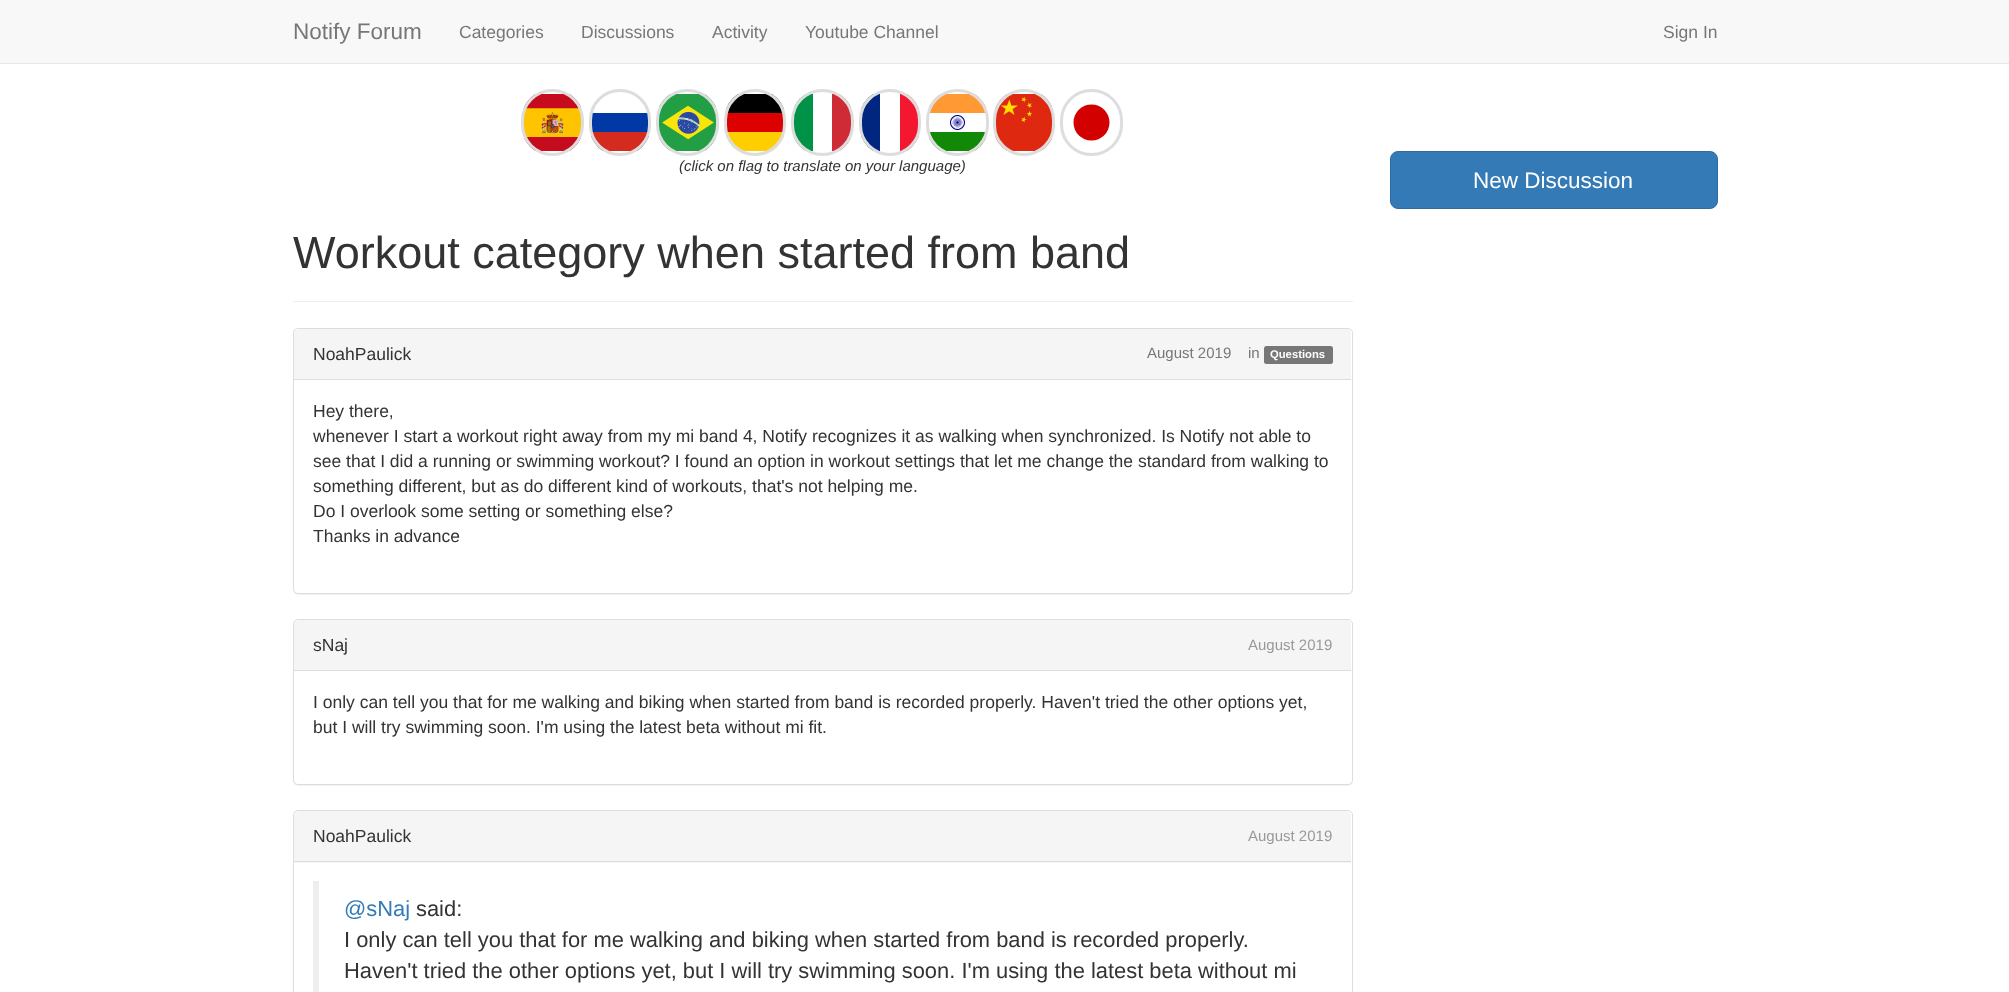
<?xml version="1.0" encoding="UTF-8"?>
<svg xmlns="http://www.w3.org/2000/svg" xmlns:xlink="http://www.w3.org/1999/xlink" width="2009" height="992">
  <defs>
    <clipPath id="clip1"><rect x="589" y="89" width="62" height="67" rx="31" /></clipPath>
    <clipPath id="clip2"><rect x="724" y="89" width="62" height="67" rx="31" /></clipPath>
    <clipPath id="clip3"><rect x="791" y="89" width="63" height="67" rx="31.5" /></clipPath>
    <clipPath id="clip4"><rect x="859" y="89" width="62" height="67" rx="31" /></clipPath>
  </defs>
  <rect width="100%" height="100%" fill="#ffffff" />
  <rect width="2009" height="63" fill="#f8f8f8" />
  <rect y="63" width="2009" height="1" fill="#e7e7e7" />
  <image x="524" y="94" width="57" height="57" xlink:href="image1.png" />
  <rect x="522.5" y="90.5" width="60" height="64" rx="30" fill="none" stroke="#dddddd" stroke-width="3" />
  <g clip-path="url(#clip1)">
    <rect x="591" y="113" width="58" height="38" fill="#0039a6" />
    <rect x="591" y="132" width="58" height="19" fill="#d52b1e" />
  </g>
  <rect x="590.5" y="90.5" width="59" height="64" rx="29.5" fill="none" stroke="#dddddd" stroke-width="3" />
  <image x="659" y="94" width="57" height="57" xlink:href="image2.png" />
  <rect x="657.5" y="90.5" width="60" height="64" rx="30" fill="none" stroke="#dddddd" stroke-width="3" />
  <g clip-path="url(#clip2)">
    <rect x="726" y="132" width="58" height="19" fill="#ffce00" />
    <rect x="726" y="94" width="58" height="19" fill="#000000" />
  </g>
  <rect x="727" y="113" width="56" height="19" fill="#dd0000" />
  <rect x="725.5" y="90.5" width="59" height="64" rx="29.5" fill="none" stroke="#dddddd" stroke-width="3" />
  <g clip-path="url(#clip3)">
    <rect x="794" y="94" width="19" height="57" fill="#009246" />
    <rect x="832" y="94" width="19" height="57" fill="#ce2b37" />
  </g>
  <rect x="792.5" y="90.5" width="60" height="64" rx="30" fill="none" stroke="#dddddd" stroke-width="3" />
  <g clip-path="url(#clip4)">
    <rect x="861" y="94" width="19" height="57" fill="#00267f" />
    <rect x="900" y="94" width="19" height="57" fill="#f31830" />
  </g>
  <rect x="860.5" y="90.5" width="59" height="64" rx="29.5" fill="none" stroke="#dddddd" stroke-width="3" />
  <image x="929" y="94" width="57" height="57" xlink:href="image3.png" />
  <rect x="927.5" y="90.5" width="60" height="64" rx="30" fill="none" stroke="#dddddd" stroke-width="3" />
  <image x="995" y="94" width="57" height="57" xlink:href="image4.png" />
  <rect x="994.5" y="90.5" width="59" height="64" rx="29.5" fill="none" stroke="#dddddd" stroke-width="3" />
  <circle cx="1091.5" cy="122.5" r="18" fill="#d30000" />
  <rect x="1061.5" y="90.5" width="60" height="64" rx="30" fill="none" stroke="#dddddd" stroke-width="3" />
  <rect x="293" y="301" width="1060" height="1" fill="#eeeeee" />
  <rect x="293" y="329" width="1060" height="266" rx="5" fill="#000000" fill-opacity="0.05" filter="blur(0.5px)" />
  <rect x="293.5" y="328.5" width="1059" height="265" rx="4.5" fill="#ffffff" stroke="#dddddd" />
  <path d="M 298 329 h 1049 c 2 0 4 2 4 4 v 47 h -1057 v -47 c 0 -2 2 -4 4 -4 z" fill="#f5f5f5" />
  <rect x="294" y="379" width="1057" height="1" fill="#dddddd" />
  <rect x="1264" y="346" width="69" height="18" rx="2.5" fill="#777777" />
  <rect x="293" y="620" width="1060" height="166" rx="5" fill="#000000" fill-opacity="0.05" filter="blur(0.5px)" />
  <rect x="293.5" y="619.5" width="1059" height="165" rx="4.5" fill="#ffffff" stroke="#dddddd" />
  <path d="M 298 620 h 1049 c 2 0 4 2 4 4 v 47 h -1057 v -47 c 0 -2 2 -4 4 -4 z" fill="#f5f5f5" />
  <rect x="294" y="670" width="1057" height="1" fill="#dddddd" />
  <rect x="293.5" y="810.5" width="1059" height="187" rx="4.5" fill="none" stroke="#dddddd" />
  <path d="M 298 811 h 1049 c 2 0 4 2 4 4 v 48 h -1057 v -48 c 0 -2 2 -4 4 -4 z" fill="#f5f5f5" />
  <rect x="294" y="861" width="1057" height="1" fill="#dddddd" />
  <rect x="313" y="881" width="6" height="111" fill="#eeeeee" />
  <rect x="1390.5" y="151.5" width="327" height="57" rx="7.5" fill="#337ab7" stroke="#2e6da4" />
  <text x="293" y="39" style="font-family: Liberation Sans; font-size: 22.5px; fill: #777777">Notify Forum</text>
  <text x="459" y="38" style="font-family: Liberation Sans; font-size: 17.5px; fill: #777777">Categories</text>
  <text x="581" y="38" style="font-family: Liberation Sans; font-size: 17.5px; fill: #777777">Discussions</text>
  <text x="712" y="38" style="font-family: Liberation Sans; font-size: 17.5px; fill: #777777">Activity</text>
  <text x="805" y="38" style="font-family: Liberation Sans; font-size: 17.5px; fill: #777777">Youtube Channel</text>
  <text x="1663" y="38" style="font-family: Liberation Sans; font-size: 17.5px; fill: #777777">Sign In</text>
  <text x="679" y="171" style="font-family: Liberation Sans; font-size: 15px; font-style: italic; fill: #333333">(click on flag to translate on your language)</text>
  <text x="293" y="268" style="font-family: Liberation Sans; font-size: 45px; fill: #333333">Workout category when started from band</text>
  <text x="313" y="360" style="font-family: Liberation Sans; font-size: 17.5px; fill: #333333">NoahPaulick</text>
  <text x="1147" y="358" style="font-family: Liberation Sans; font-size: 15px; fill: #777777">August 2019</text>
  <text x="1248" y="358" style="font-family: Liberation Sans; font-size: 15px; fill: #777777">in</text>
  <text x="1270" y="358" style="font-family: Liberation Sans; font-size: 11.25px; font-weight: bold; fill: #ffffff">Questions</text>
  <text x="313" y="417" style="font-family: Liberation Sans; font-size: 17.5px; fill: #333333">Hey there,</text>
  <text x="313" y="442" style="font-family: Liberation Sans; font-size: 17.5px; fill: #333333">whenever I start a workout right away from my mi band 4, Notify recognizes it as walking when synchronized. Is Notify not able to</text>
  <text x="313" y="467" style="font-family: Liberation Sans; font-size: 17.5px; fill: #333333">see that I did a running or swimming workout? I found an option in workout settings that let me change the standard from walking to</text>
  <text x="313" y="492" style="font-family: Liberation Sans; font-size: 17.5px; fill: #333333">something different, but as do different kind of workouts, that's not helping me.</text>
  <text x="313" y="517" style="font-family: Liberation Sans; font-size: 17.5px; fill: #333333">Do I overlook some setting or something else?</text>
  <text x="313" y="542" style="font-family: Liberation Sans; font-size: 17.5px; fill: #333333">Thanks in advance</text>
  <text x="313" y="651" style="font-family: Liberation Sans; font-size: 17.5px; fill: #333333">sNaj</text>
  <text x="1248" y="650" style="font-family: Liberation Sans; font-size: 15px; fill: #999999">August 2019</text>
  <text x="313" y="708" style="font-family: Liberation Sans; font-size: 17.5px; fill: #333333">I only can tell you that for me walking and biking when started from band is recorded properly. Haven't tried the other options yet,</text>
  <text x="313" y="733" style="font-family: Liberation Sans; font-size: 17.5px; fill: #333333">but I will try swimming soon. I'm using the latest beta without mi fit.</text>
  <text x="313" y="842" style="font-family: Liberation Sans; font-size: 17.5px; fill: #333333">NoahPaulick</text>
  <text x="1248" y="841" style="font-family: Liberation Sans; font-size: 15px; fill: #999999">August 2019</text>
  <text x="344" y="916" style="font-family: Liberation Sans; font-size: 21.9px; fill: #337ab7">@sNaj</text>
  <text x="416" y="916" style="font-family: Liberation Sans; font-size: 21.9px; fill: #333333">said:</text>
  <text x="344" y="947" style="font-family: Liberation Sans; font-size: 21.9px; fill: #333333">I only can tell you that for me walking and biking when started from band is recorded properly.</text>
  <text x="344" y="978" style="font-family: Liberation Sans; font-size: 21.9px; fill: #333333">Haven't tried the other options yet, but I will try swimming soon. I'm using the latest beta without mi</text>
  <text x="1473" y="188" style="font-family: Liberation Sans; font-size: 22.5px; fill: #ffffff">New Discussion</text>
</svg>
